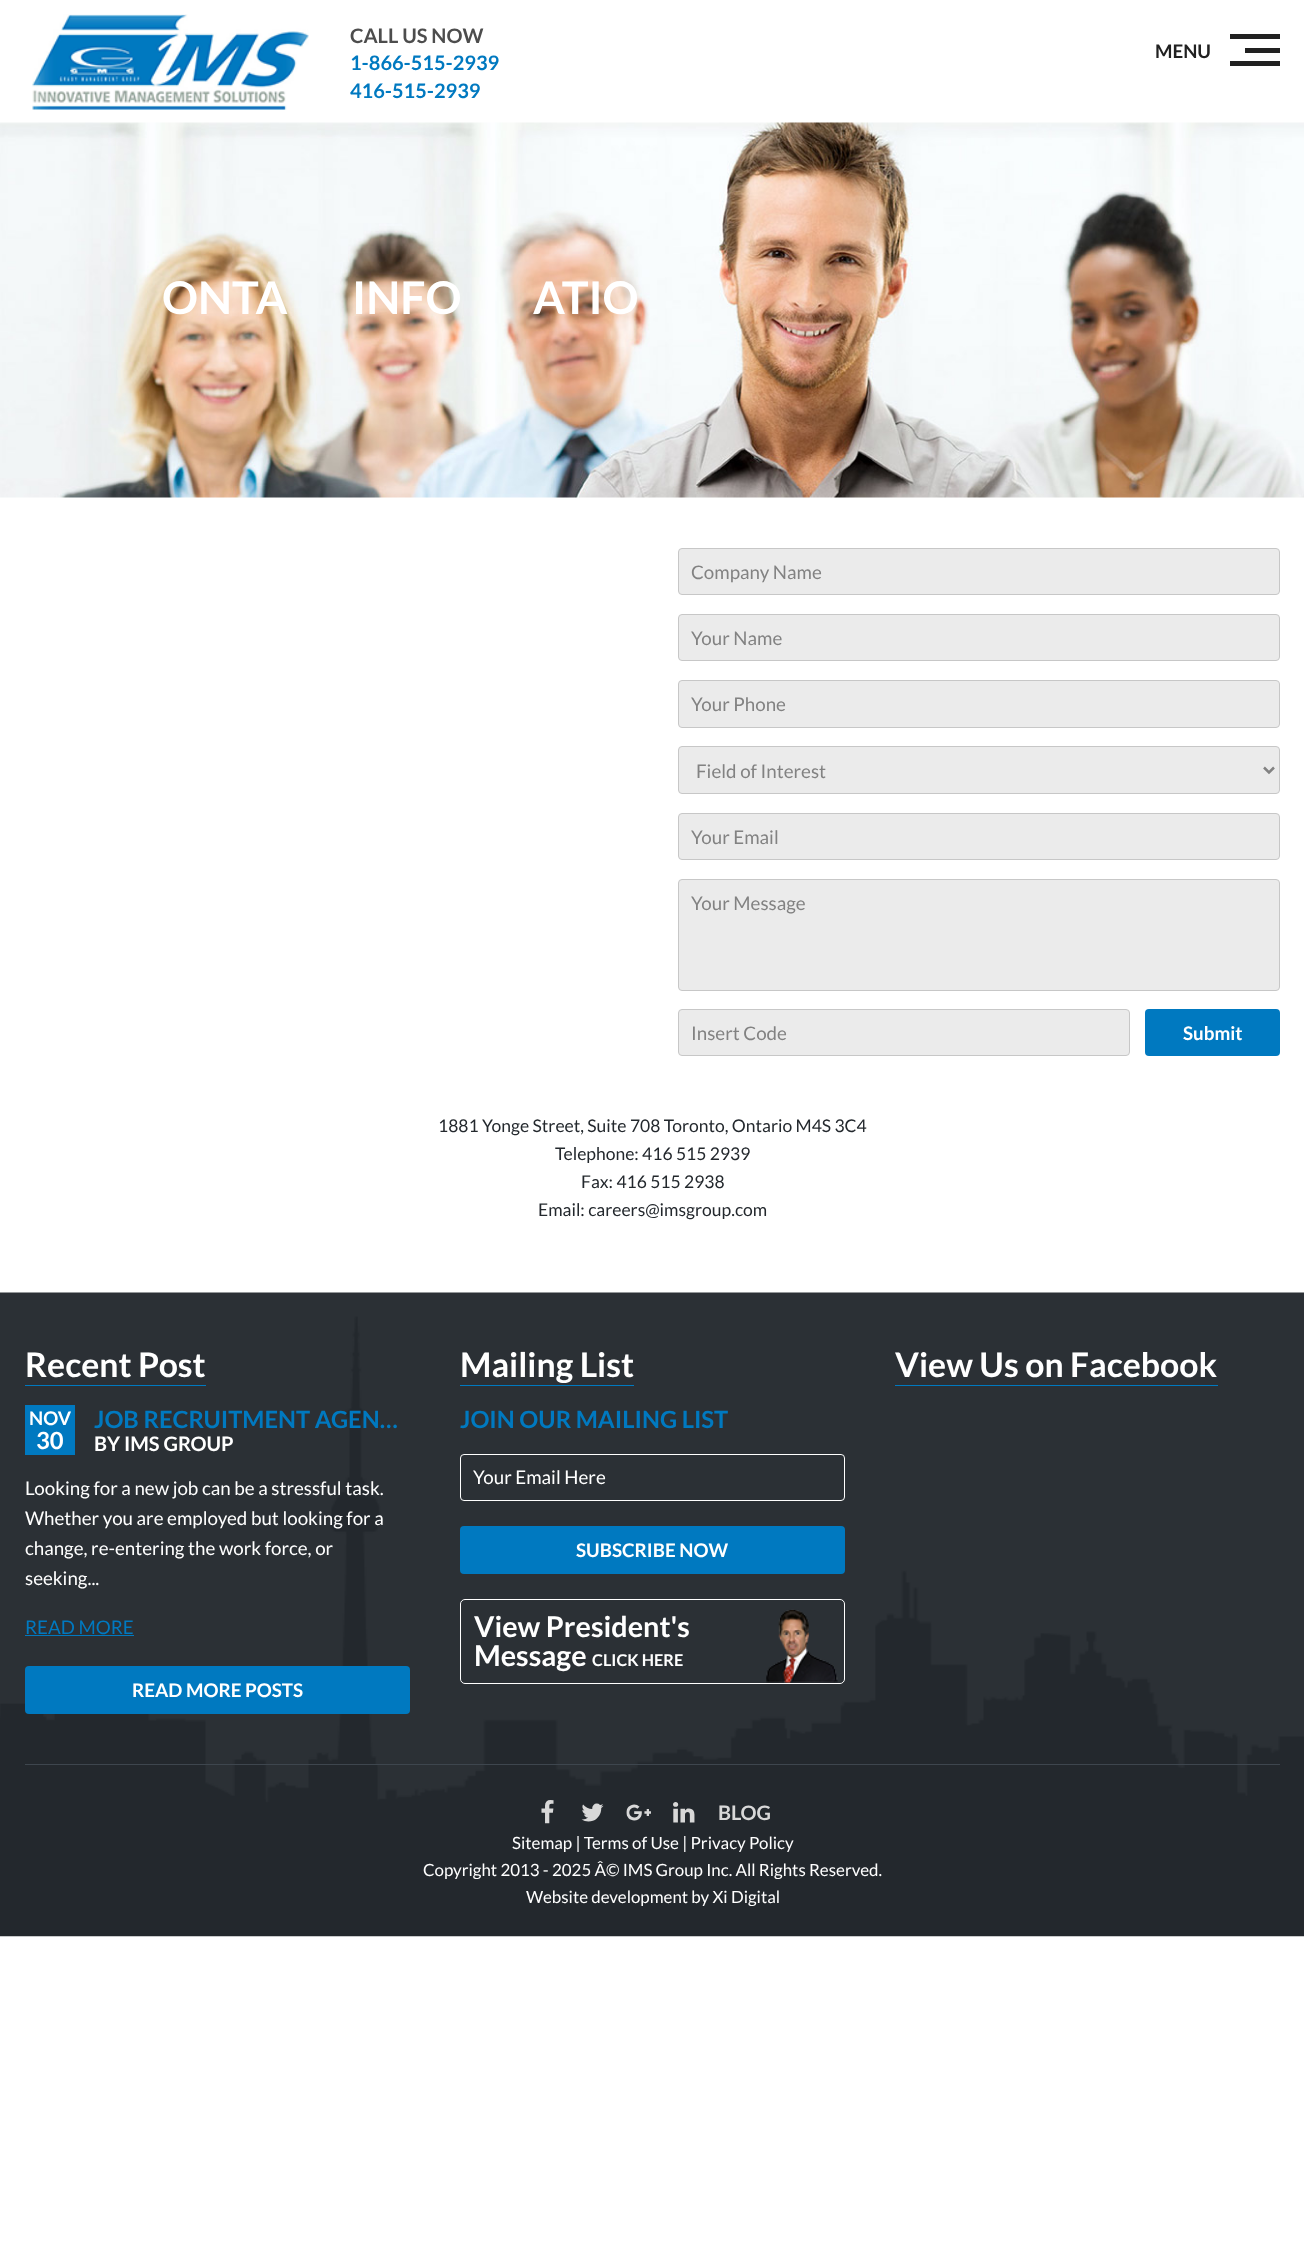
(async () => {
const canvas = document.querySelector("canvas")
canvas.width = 1304
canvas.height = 2260
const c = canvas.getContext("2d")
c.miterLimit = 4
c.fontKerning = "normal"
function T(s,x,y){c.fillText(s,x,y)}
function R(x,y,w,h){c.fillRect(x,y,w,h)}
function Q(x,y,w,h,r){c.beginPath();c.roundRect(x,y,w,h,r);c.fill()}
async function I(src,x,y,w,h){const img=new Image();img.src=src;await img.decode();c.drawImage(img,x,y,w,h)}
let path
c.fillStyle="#fff"
R(0,0,1304,2260)
await I("1.png",32,14,277,96)
c.font="bold 20px Lato"
c.fillStyle="#4d4d4d"
T("CALL US NOW",350,43)
c.fillStyle="#0079c0"
T("1-866-515-2939",350,70)
T("416-515-2939",350,98)
c.fillStyle="#212121"
R(1230,34,50,5)
c.font="bold 18.75px Lato"
T("MENU",1155,58)
R(1245,48,35,5)
R(1230,61,50,5)
await I("2.png",0,122,1304,376)
c.font="bold 45px Lato"
c.fillStyle="#fff"
T("ONTA",162,314)
T("INFO",352,314)
T("ATIO",533,314)
c.fillStyle="#ebebeb"
c.beginPath()
c.roundRect(678.5,548.5,601,46,3.5)
c.fill()
c.strokeStyle="#c7c7c7"
c.stroke()
c.font="18.75px Lato"
c.fillStyle="#828282"
T("Company Name",691,579)
c.fillStyle="#ebebeb"
c.beginPath()
c.roundRect(678.5,614.5,601,46,3.5)
c.fill()
c.stroke()
c.fillStyle="#828282"
T("Your Name",691,645)
c.fillStyle="#ebebeb"
c.beginPath()
c.roundRect(678.5,680.5,601,47,3.5)
c.fill()
c.stroke()
c.fillStyle="#828282"
T("Your Phone",691,711)
c.fillStyle="#ebebeb"
c.beginPath()
c.roundRect(678.5,746.5,601,47,3.5)
c.fill()
c.stroke()
path = new Path2D("M1264 767.5l5 5l5-5")
c.strokeStyle="#828282"
c.lineWidth=2.5
c.stroke(path)
c.fillStyle="#828282"
T("Field of Interest",696,778)
c.fillStyle="#ebebeb"
c.beginPath()
c.roundRect(678.5,813.5,601,46,3.5)
c.fill()
c.strokeStyle="#c7c7c7"
c.lineWidth=1
c.stroke()
c.fillStyle="#828282"
T("Your Email",691,844)
c.fillStyle="#ebebeb"
c.beginPath()
c.roundRect(678.5,879.5,601,111,3.5)
c.fill()
c.stroke()
c.fillStyle="#828282"
T("Your Message",691,910)
c.fillStyle="#ebebeb"
c.beginPath()
c.roundRect(678.5,1009.5,451,46,3.5)
c.fill()
c.stroke()
c.fillStyle="#828282"
T("Insert Code",691,1040)
c.fillStyle="#0079c0"
Q(1145,1009,135,47,4)
c.font="bold 18.75px Lato"
c.fillStyle="#fff"
T("Submit",1183,1040)
c.font="17.5px Lato"
c.fillStyle="#23282d"
T("1881 Yonge Street, Suite 708 Toronto, Ontario M4S 3C4",438,1132)
T("Telephone: 416 515 2939",555,1160)
T("Fax: 416 515 2938",581,1188)
T("Email: careers@imsgroup.com",538,1216)
await I("3.png",0,1292,1304,645)
c.fillStyle="#0079c0"
R(25,1385,181,1)
c.font="bold 33.75px Lato"
c.fillStyle="#fff"
T("Recent Post",25,1377)
c.fillStyle="#0079c0"
R(25,1405,50,50)
c.font="bold 18.75px Lato"
c.fillStyle="#fff"
T("NOV",29,1425)
c.font="bold 23.75px Lato"
T("30",36,1449)
c.fillStyle="#0079c0"
T("JOB RECRUITMENT AGEN…",94,1428)
c.font="bold 20px Lato"
c.fillStyle="#fff"
T("BY IMS GROUP",94,1451)
c.font="18.75px Lato"
T("Looking for a new job can be a stressful task.",25,1495)
T("Whether you are employed but looking for a",25,1525)
T("change, re-entering the work force, or",25,1555)
T("seeking...",25,1585)
c.fillStyle="#0079c0"
T("READ MORE",25,1634)
R(25,1635,109,1)
Q(25,1666,385,48,4)
c.font="bold 18.75px Lato"
c.fillStyle="#fff"
T("READ MORE POSTS",132,1697)
c.fillStyle="#0079c0"
R(460,1385,174,1)
c.font="bold 33.75px Lato"
c.fillStyle="#fff"
T("Mailing List",460,1377)
c.font="bold 23.75px Lato"
c.fillStyle="#0079c0"
T("JOIN OUR MAILING LIST",460,1428)
c.beginPath()
c.roundRect(460.5,1454.5,384,46,3.5)
c.strokeStyle="#fff"
c.stroke()
c.font="18.75px Lato"
c.fillStyle="#fff"
T("Your Email Here",473,1484)
c.fillStyle="#0079c0"
Q(460,1526,385,48,4)
c.font="bold 18.75px Lato"
c.fillStyle="#fff"
T("SUBSCRIBE NOW",576,1557)
c.beginPath()
c.roundRect(460.5,1599.5,384,84,4.5)
c.stroke()
c.font="bold 28.75px Lato"
T("View President's",474,1637)
await I("4.png",766,1609,72,74)
T("Message",474,1666)
c.font="bold 16.25px Lato"
T("CLICK HERE",592,1666)
c.fillStyle="#0079c0"
R(895,1385,323,1)
c.font="bold 33.75px Lato"
c.fillStyle="#fff"
T("View Us on Facebook",895,1377)
c.fillStyle="#3e464e"
R(25,1764,1255,1)
await I("5.png",541,1800,13,24)
await I("6.png",581,1803,23,19)
await I("7.png",626,1804,25,17)
await I("8.png",673,1802,22,21)
c.font="bold 20px Lato"
c.fillStyle="#d8d8d8"
T("BLOG",718,1820)
c.font="16.9px Lato"
c.fillStyle="#fff"
T("Sitemap | Terms of Use | Privacy Policy",512,1849)
T("Copyright 2013 - 2025 Â© IMS Group Inc. All Rights Reserved.",423,1876)
T("Website development by Xi Digital",526,1903)
})()
